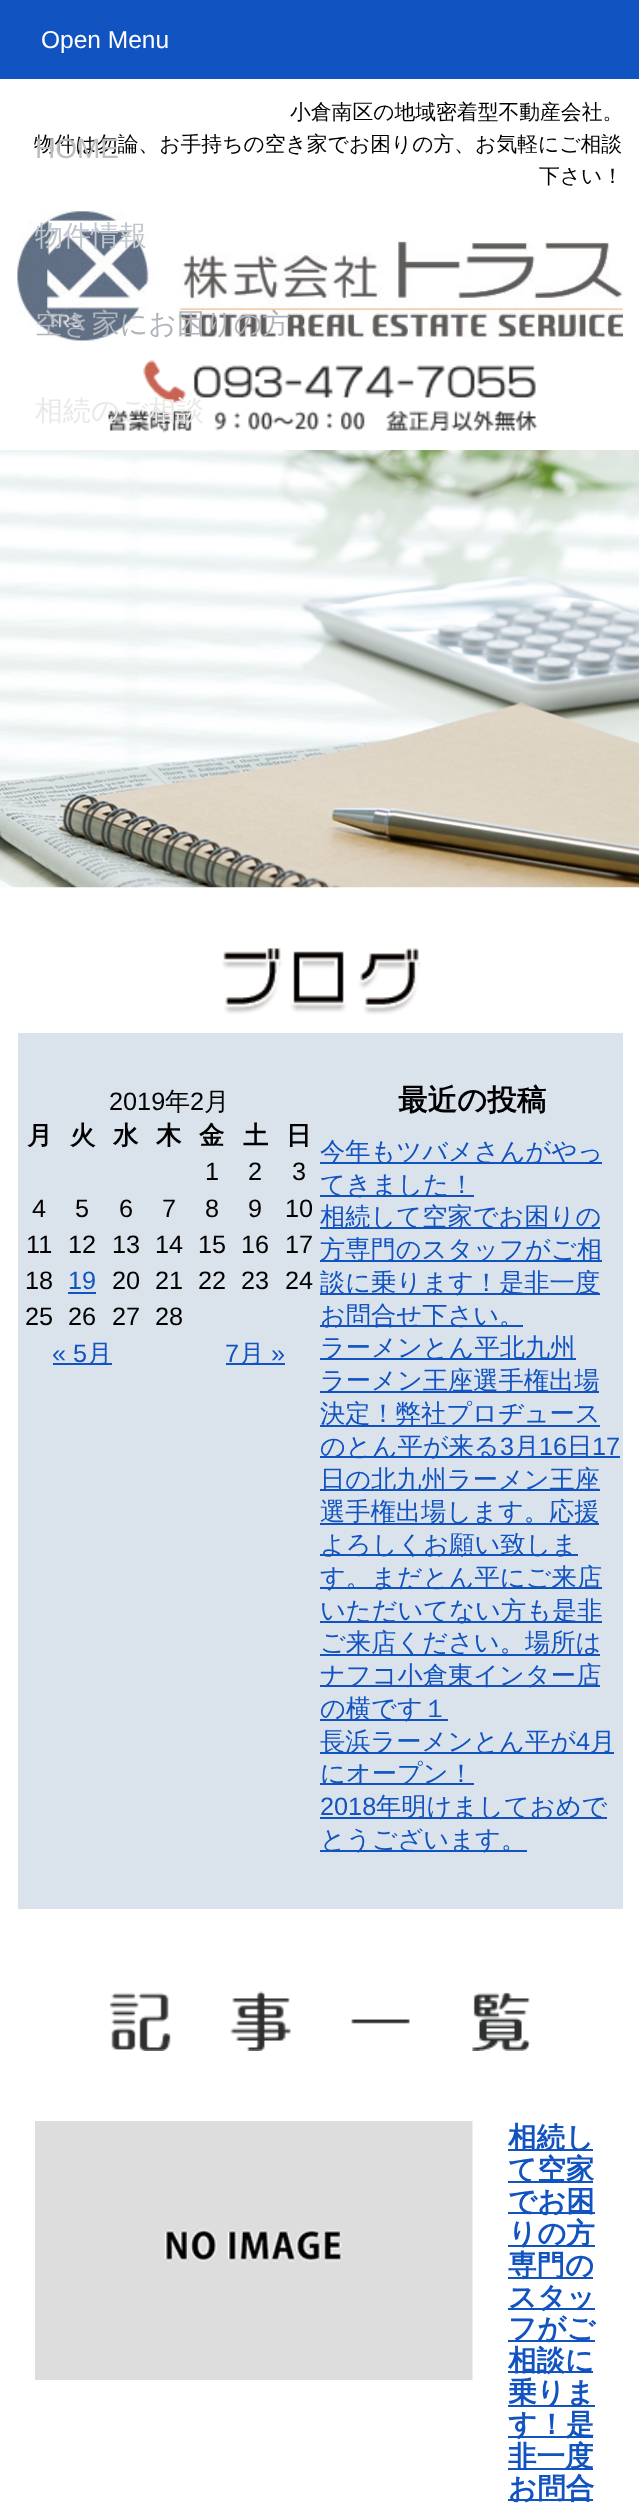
(async () => {
const canvas = document.querySelector("canvas")
canvas.width = 639
canvas.height = 2519
const c = canvas.getContext("2d")
c.miterLimit = 4
c.fontKerning = "normal"
function T(s,x,y){c.fillText(s,x,y)}
function R(x,y,w,h){c.fillRect(x,y,w,h)}
async function I(src,x,y,w,h){const img=new Image();img.src=src;await img.decode();c.drawImage(img,x,y,w,h)}
c.fillStyle="#fff"
R(0,0,639,2519)
c.fillStyle="#1153c1"
R(0,0,639,79)
c.font="24.5px Liberation Sans"
c.fillStyle="#fff"
T("Open Menu",41,48)
c.font="500 20.8px WenQuanYi Zen Hei"
c.fillStyle="#000"
T("物件は勿論、お手持ちの空き家でお困りの方、お気軽にご相談",34,151)
c.font="28px Liberation Sans"
c.fillStyle="#bfbfbf"
T("HOME",35,158)
await I("1.png",17,210,606,133)
c.font="500 28px WenQuanYi Zen Hei"
c.fillStyle="#c0c6ce"
T("物件情報",35,245)
c.fillStyle="#b0b5bc"
T("空き家にお困りの方",35,333)
await I("2.png",108,360,430,73)
c.fillStyle="#eae9e8"
T("相続のご相談",35,420)
c.font="500 20.8px WenQuanYi Zen Hei"
c.fillStyle="#000"
T("小倉南区の地域密着型不動産会社。",290,119)
T("下さい！",539,183)
await I("3.png",0,450,639,438)
await I("4.png",222,948,199,67)
c.fillStyle="#dae2ec"
R(18,1033,605,876)
c.font="25.25px Liberation Sans"
c.fillStyle="#000"
T("2019",109,1110)
c.font="500 25.25px WenQuanYi Zen Hei"
T("年",165,1110)
c.font="25.25px Liberation Sans"
T("2",190,1110)
c.font="500 25.25px WenQuanYi Zen Hei"
T("月",204,1110)
c.font="bold 25.25px WenQuanYi Zen Hei"
T("月",27,1144)
T("火",70,1144)
T("水",113,1144)
T("木",156,1144)
T("金",199,1144)
T("土",243,1144)
T("日",286,1144)
c.font="25.25px Liberation Sans"
T("1",205,1180)
T("2",248,1180)
T("3",292,1180)
T("4",32,1217)
T("5",75,1217)
T("6",119,1217)
T("7",162,1217)
T("8",205,1217)
T("9",248,1217)
T("10",285,1217)
T("11",26,1253)
T("12",68,1253)
T("13",112,1253)
T("14",155,1253)
T("15",198,1253)
T("16",241,1253)
T("17",285,1253)
T("18",25,1289)
c.fillStyle="#1153c1"
T("19",68,1289)
R(68,1292,28,2)
c.fillStyle="#000"
T("20",112,1289)
T("21",155,1289)
T("22",198,1289)
T("23",241,1289)
T("24",285,1289)
T("25",25,1325)
T("26",68,1325)
T("27",112,1325)
T("28",155,1325)
c.fillStyle="#1153c1"
T("« 5",52,1362)
R(53,1363,59,2)
c.font="500 25.25px WenQuanYi Zen Hei"
T("月",87,1362)
c.font="25.25px Liberation Sans"
T("7",225,1362)
R(226,1363,59,2)
c.font="500 25.25px WenQuanYi Zen Hei"
T("月",239,1362)
c.font="25.25px Liberation Sans"
T("»",271,1362)
c.font="bold 29.5px WenQuanYi Zen Hei"
c.fillStyle="#000"
T("最近の投稿",398,1110)
c.fillStyle="#1153c1"
R(320,1162,282,2)
c.font="500 25.25px WenQuanYi Zen Hei"
T("今年もツバメさんがやっ",320,1160)
R(320,1195,154,2)
T("てきました！",320,1193)
R(320,1227,280,2)
T("相続して空家でお困りの",320,1225)
R(320,1260,282,2)
T("方専門のスタッフがご相",320,1258)
R(320,1293,280,2)
T("談に乗ります！是非一度",320,1291)
R(320,1325,203,2)
T("お問合せ下さい。",320,1324)
R(320,1358,256,2)
T("ラーメンとん平北九州",320,1356)
R(320,1391,279,2)
T("ラーメン王座選手権出場",320,1389)
R(320,1425,280,2)
T("決定！弊社プロヂュース",320,1422)
R(320,1456,300,2)
T("のとん平が来る",320,1455)
c.font="25.25px Liberation Sans"
T("3",500,1455)
c.font="500 25.25px WenQuanYi Zen Hei"
T("月",514,1455)
c.font="25.25px Liberation Sans"
T("16",539,1455)
c.font="500 25.25px WenQuanYi Zen Hei"
T("日",567,1455)
c.font="25.25px Liberation Sans"
T("17",592,1455)
R(320,1489,280,2)
c.font="500 25.25px WenQuanYi Zen Hei"
T("日の北九州ラーメン王座",320,1488)
R(320,1523,279,2)
T("選手権出場します。応援",320,1520)
R(320,1554,258,2)
T("よろしくお願い致しま",320,1553)
R(320,1587,282,2)
T("す。まだとん平にご来店",320,1586)
R(320,1621,282,2)
T("いただいてない方も是非",320,1619)
R(320,1654,280,2)
T("ご来店ください。場所は",320,1651)
R(320,1685,280,2)
T("ナフコ小倉東インター店",320,1684)
R(320,1719,128,2)
T("の横です１",320,1717)
R(320,1752,294,2)
T("長浜ラーメンとん平が",320,1750)
c.font="25.25px Liberation Sans"
T("4",576,1750)
c.font="500 25.25px WenQuanYi Zen Hei"
T("月",590,1750)
R(320,1783,154,2)
T("にオープン！",320,1782)
c.font="25.25px Liberation Sans"
T("2018",320,1815)
R(320,1817,287,2)
c.font="500 25.25px WenQuanYi Zen Hei"
T("年明けましておめで",376,1815)
R(320,1850,207,2)
T("とうございます。",320,1848)
await I("5.png",110,1991,421,60)
await I("6.png",35,2121,438,259)
R(508,2149,85,2)
c.font="bold 28.5px WenQuanYi Zen Hei"
T("相続し",508,2147)
R(508,2181,85,2)
T("て空家",508,2179)
R(508,2212,87,2)
T("でお困",508,2211)
R(508,2245,87,2)
T("りの方",508,2243)
R(508,2277,85,2)
T("専門の",508,2275)
R(508,2308,87,2)
T("スタッ",508,2307)
R(508,2340,87,2)
T("フがご",508,2338)
R(508,2371,85,2)
T("相談に",508,2370)
R(508,2405,87,2)
T("乗りま",508,2402)
R(508,2436,85,2)
T("す！是",508,2434)
R(508,2468,85,2)
T("非一度",508,2466)
R(508,2499,85,2)
T("お問合",508,2498)
})()
